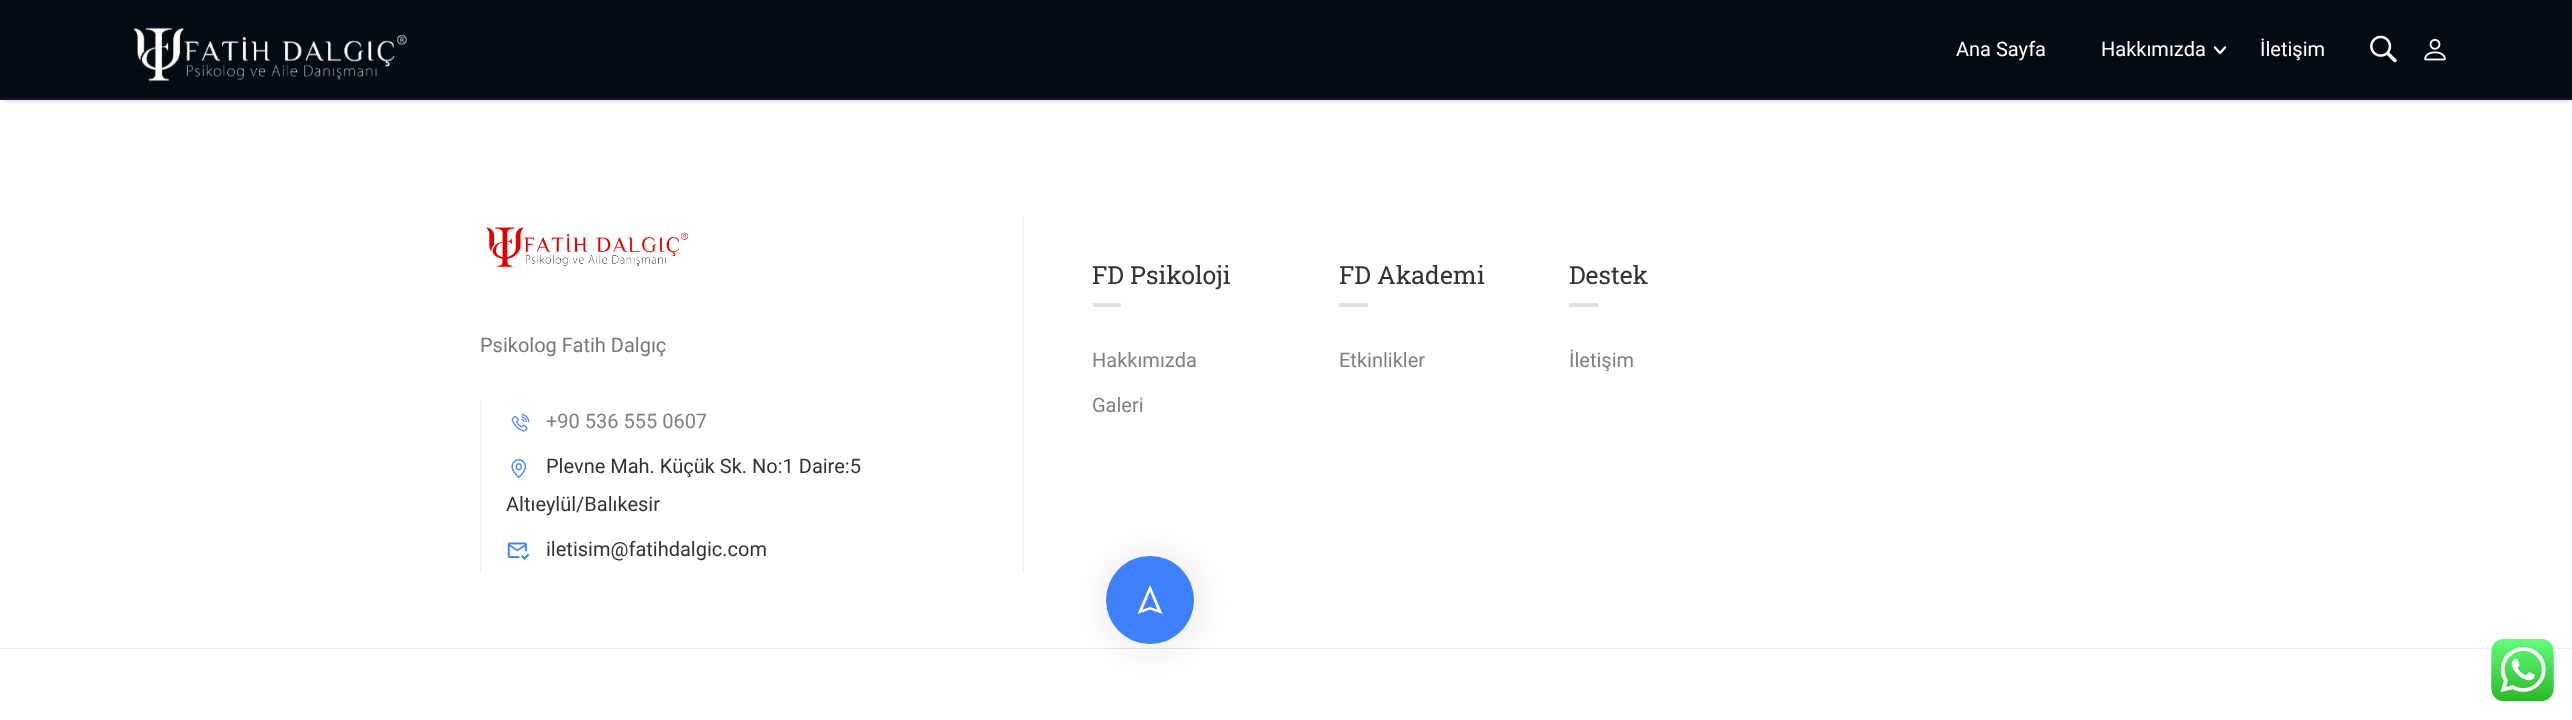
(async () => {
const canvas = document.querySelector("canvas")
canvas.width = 2572
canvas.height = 720
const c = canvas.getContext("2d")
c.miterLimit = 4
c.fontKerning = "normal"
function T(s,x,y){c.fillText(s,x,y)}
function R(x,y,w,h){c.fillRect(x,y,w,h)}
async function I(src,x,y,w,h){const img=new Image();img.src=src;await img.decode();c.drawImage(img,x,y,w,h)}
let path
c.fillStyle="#fff"
R(0,0,2572,720)
c.fillStyle="#191919"
R(0,98,2572,2)
c.fillStyle="#050c13"
R(0,0,2572,98)
await I("5.png",0,0,2572,97)
c.save()
c.beginPath()
c.rect(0,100,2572,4)
c.clip()
c.fillStyle="#2a2a2a66"
c.filter="blur(3px)"
c.beginPath()
c.rect(3,4,2567,95)
c.fill()
c.filter="none"
c.restore()
await I("1.png",134,27,273,55)
c.font="20px Roboto"
c.fillStyle="#fff"
T("Ana Sayfa",1956,56)
T("Hakkımızda",2101,56)
await I("2.png",2213,46,14,9)
T("İletişim",2260,56)
await I("3.png",2370,35,27,28)
await I("4.png",2424,39,22,22)
c.font="25px Roboto Slab"
c.fillStyle="#333"
T("FD Psikoloji",1092,284)
c.fillStyle="#e0e0e0"
R(1093,303,28,4)
c.font="20px Roboto"
c.fillStyle="#808080"
T("Hakkımızda",1092,367)
T("Galeri",1092,412)
c.font="25px Roboto Slab"
c.fillStyle="#333"
T("FD Akademi",1339,284)
c.fillStyle="#e0e0e0"
R(1339,303,29,4)
c.font="20px Roboto"
c.fillStyle="#808080"
T("Etkinlikler",1339,367)
c.font="25px Roboto Slab"
c.fillStyle="#333"
T("Destek",1569,284)
c.fillStyle="#e0e0e0"
R(1569,303,29,4)
c.font="20px Roboto"
c.fillStyle="#808080"
T("İletişim",1569,367)
c.fillStyle="#ececec"
R(1023,216,1,357)
await I("6.png",486,227,202,40)
c.fillStyle="#777"
T("Psikolog Fatih Dalgıç",480,352)
c.fillStyle="#ececec"
R(480,400,1,173)
await I("7.png",511,414,19,18)
c.fillStyle="#808080"
T("+90 536 555 0607",546,428)
await I("8.png",511,459,15,20)
c.fillStyle="#333"
T("Plevne Mah. Küçük Sk. No:1 Daire:5",546,473)
T("Altıeylül/Balıkesir",506,511)
await I("9.png",507,542,23,18)
T("iletisim@fatihdalgic.com",546,556)
c.fillStyle="#ececec"
R(0,648,2572,1)
c.fillStyle="#0000000d"
c.filter="blur(12.5px)"
c.beginPath()
c.roundRect(1096,546,113,113,56.5)
c.fill()
c.filter="none"
c.fillStyle="#3f81fc"
c.beginPath()
c.arc(1150,600,44,0,7)
c.fill()
c.fillStyle="#fff"
path = new Path2D("M1150 585l-12.5 29l12.5-4.5l12.5 4.5zm0 6.5l7.5 18l-7.5-2.5l-7.5 2.5z")
c.fill(path)
await I("10.png",2491,639,63,62)
})()
